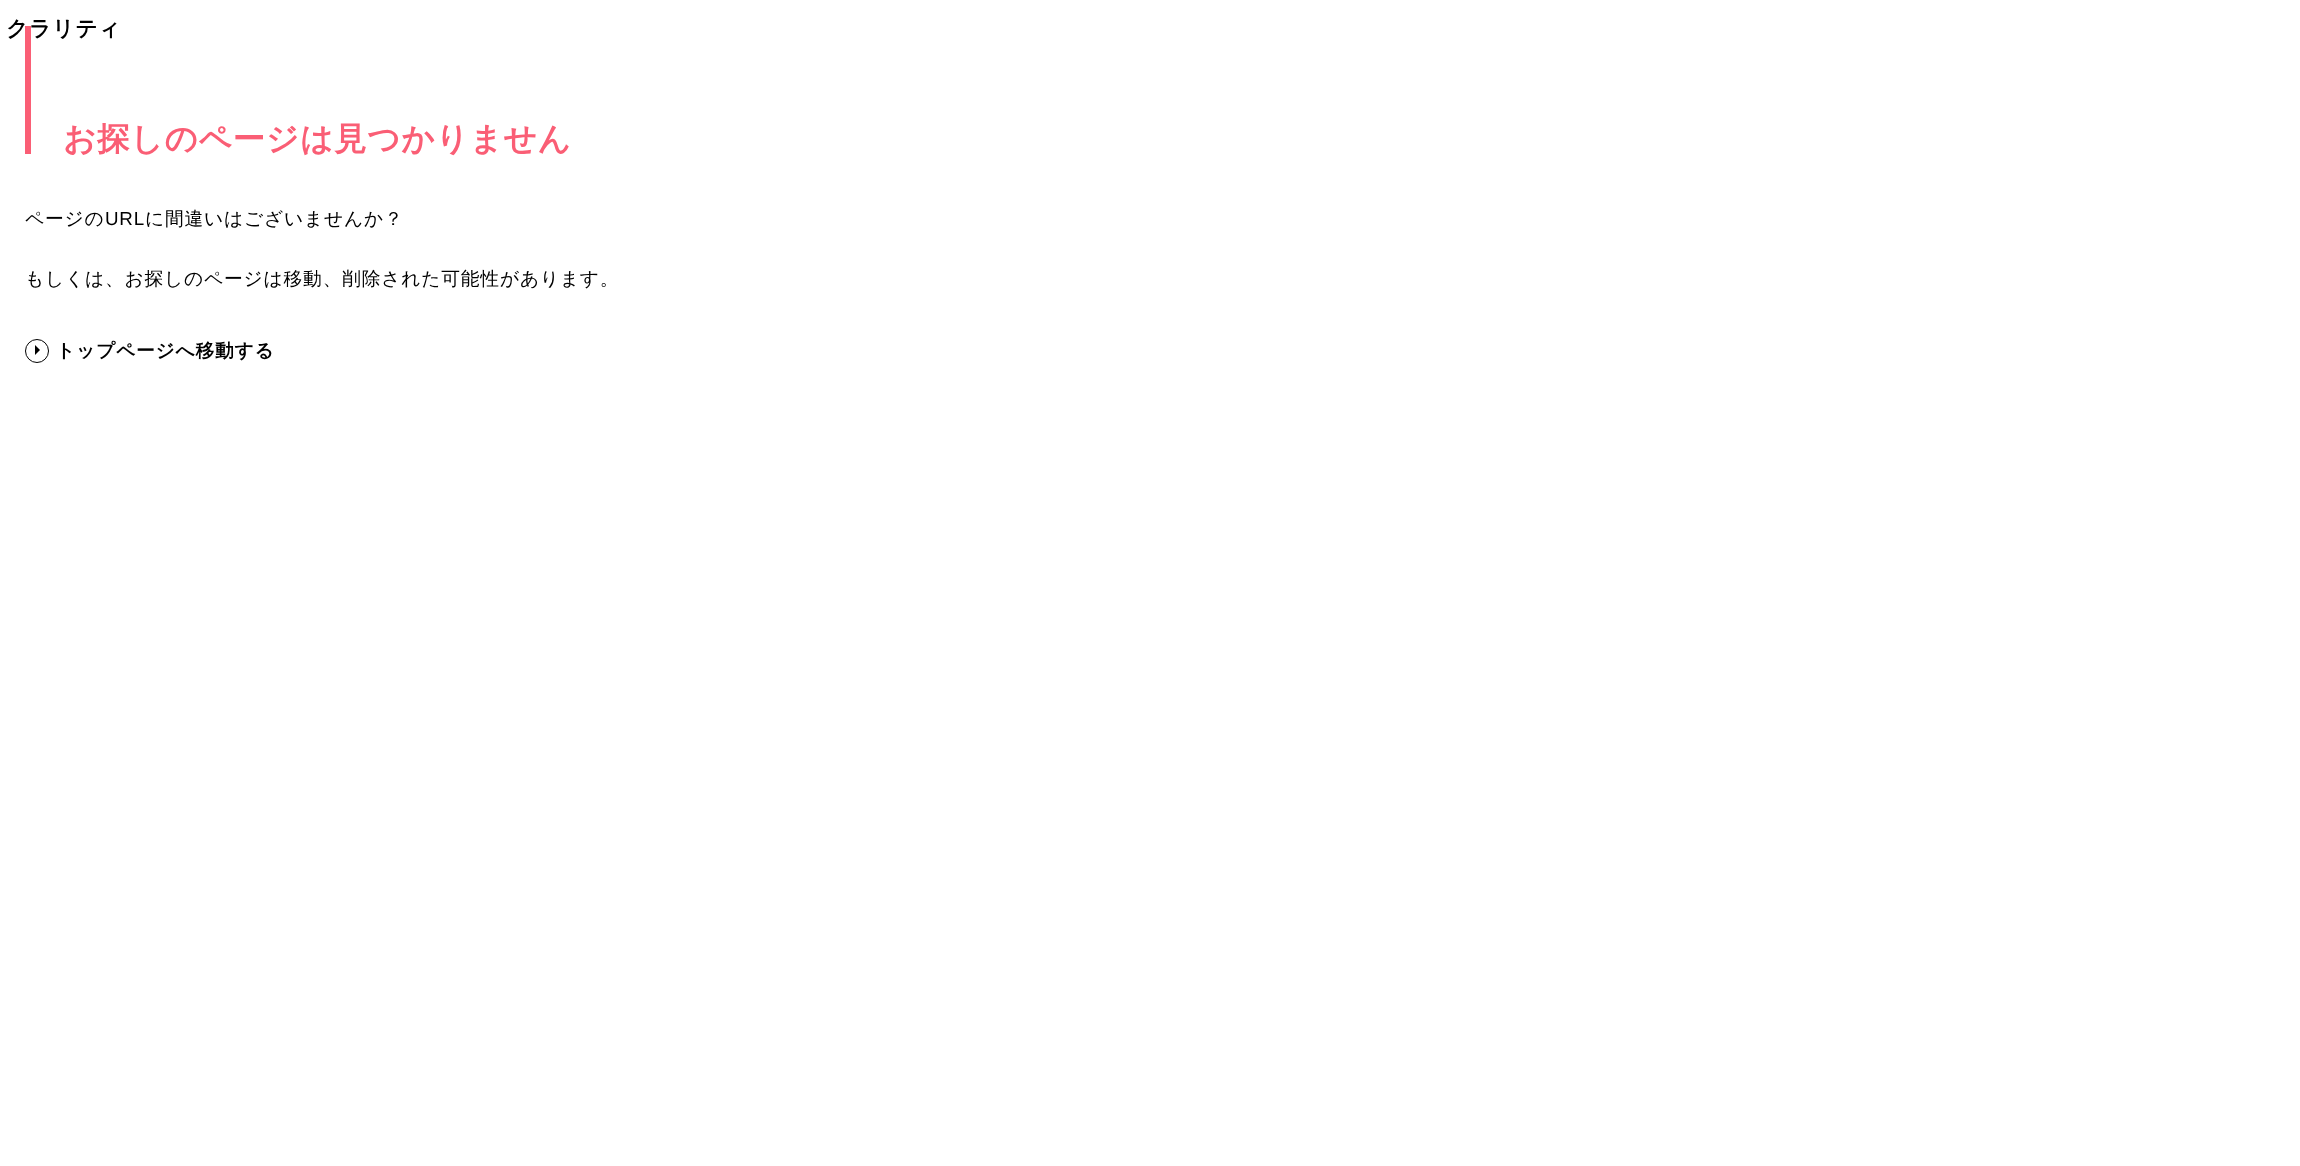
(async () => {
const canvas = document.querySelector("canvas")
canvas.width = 2300
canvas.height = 1166
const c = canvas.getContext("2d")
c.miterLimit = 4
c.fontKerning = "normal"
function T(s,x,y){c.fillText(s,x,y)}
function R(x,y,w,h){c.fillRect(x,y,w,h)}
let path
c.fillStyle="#fff"
R(0,0,2300,1166)
c.letterSpacing="0.8px"
c.font="bold 21.75px WenQuanYi Zen Hei"
c.fillStyle="#000"
T("クラリティ",6,36)
c.fillStyle="#fa5e75"
R(25,26,6,128)
c.font="bold 32.5px WenQuanYi Zen Hei"
T("お探しのページは見つかりません",63,150)
c.font="500 18.75px WenQuanYi Zen Hei"
c.fillStyle="#000"
T("ページの",25,225)
c.font="18.75px Liberation Sans"
T("URL",105,225)
c.font="500 18.75px WenQuanYi Zen Hei"
T("に間違いはございませんか？",145,225)
T("もしくは、お探しのページは移動、削除された可能性があります。",25,285)
c.beginPath()
c.arc(37,351,11.5,0,7)
c.strokeStyle="#000"
c.stroke()
c.font="bold 18.75px WenQuanYi Zen Hei"
T("トップページへ移動する",56,357)
path = new Path2D("M35 355v-10l5 5z")
c.fill(path)
})()
